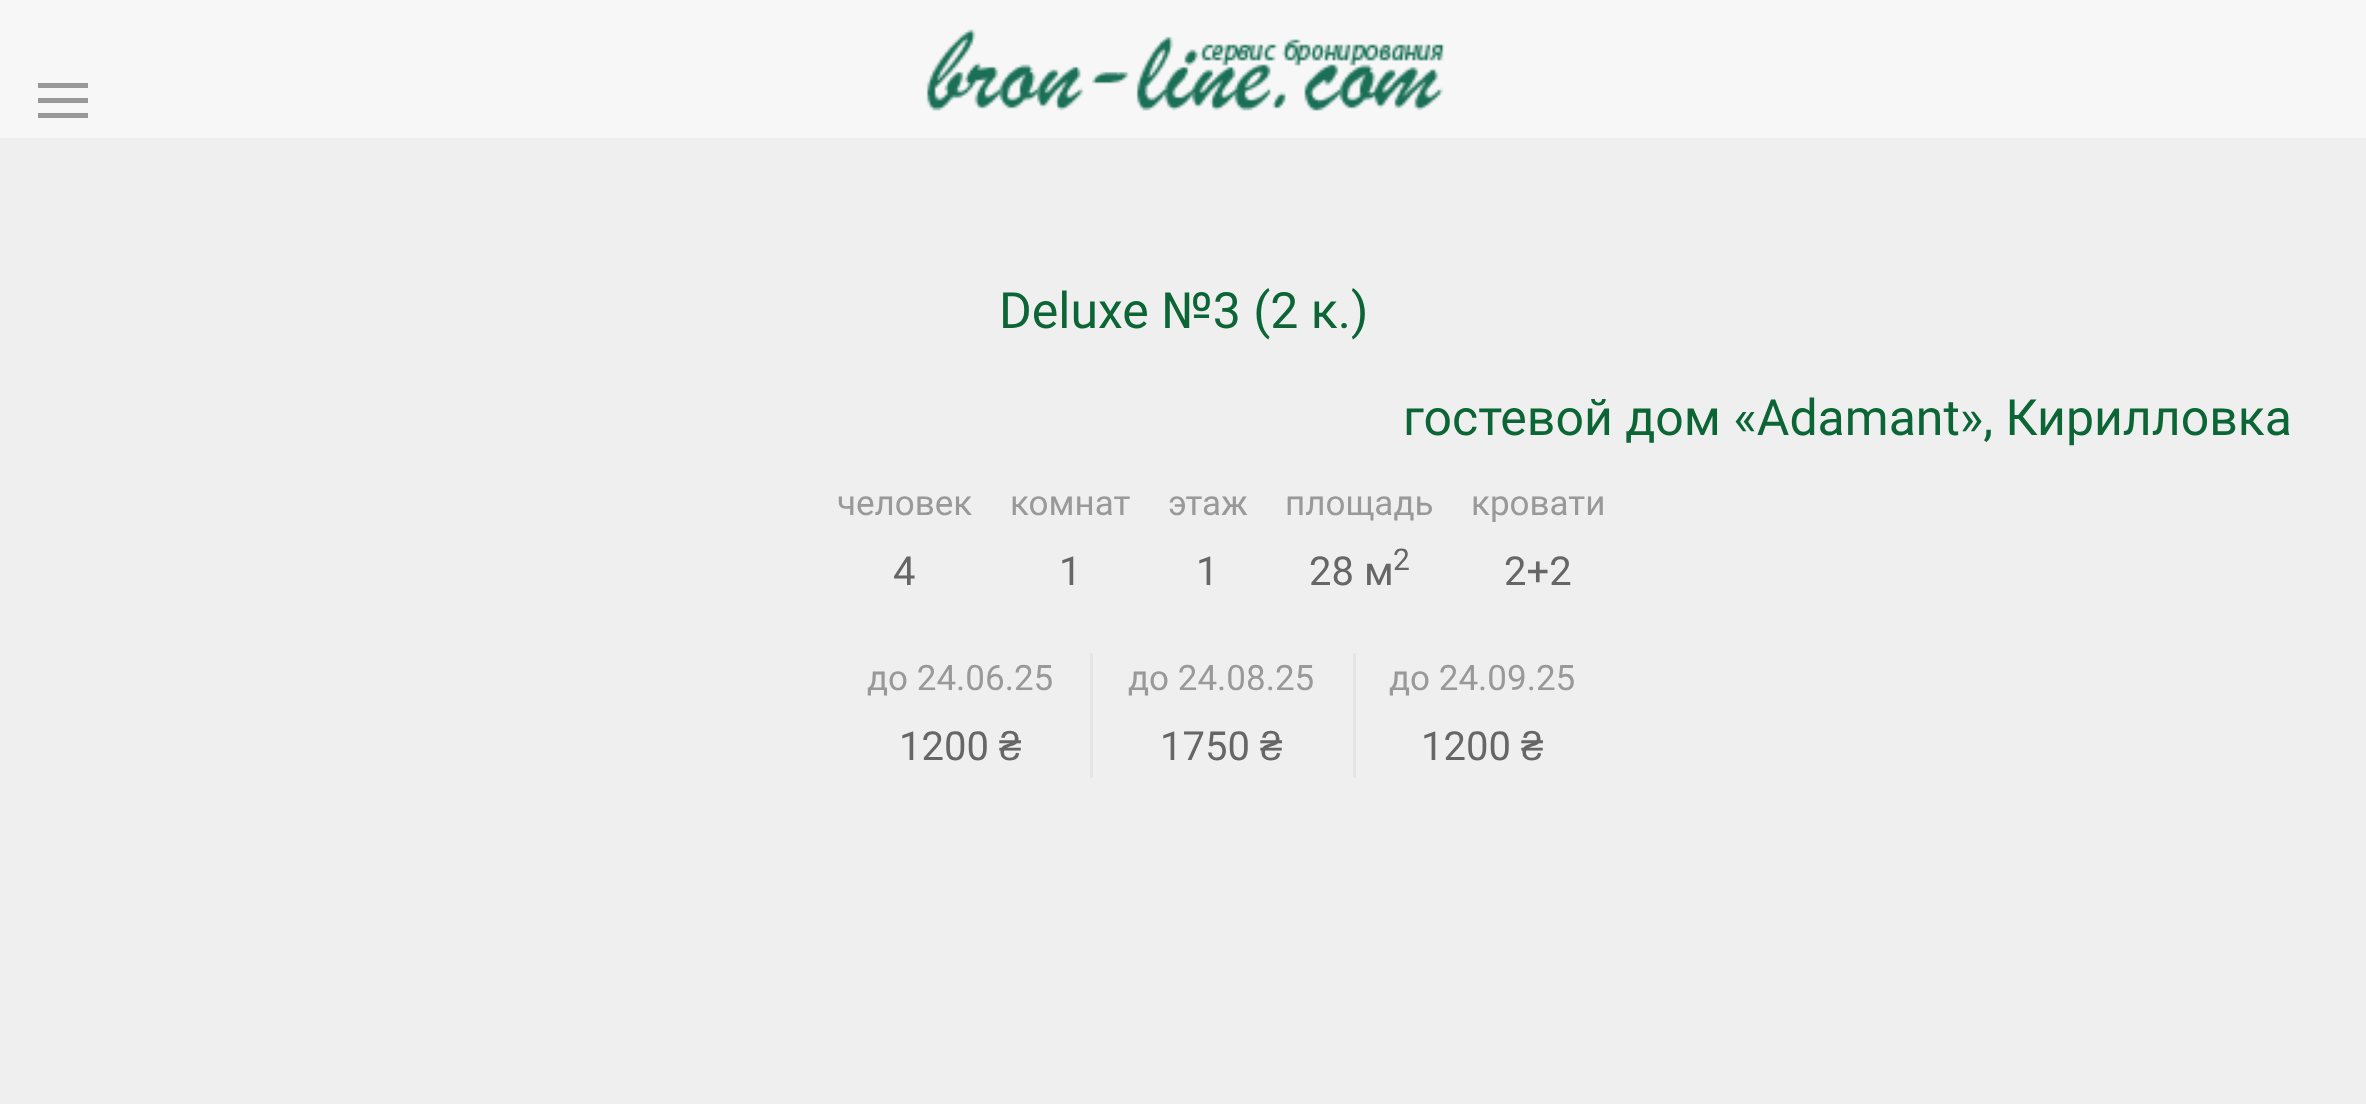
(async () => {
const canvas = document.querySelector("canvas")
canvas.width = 2366
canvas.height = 1104
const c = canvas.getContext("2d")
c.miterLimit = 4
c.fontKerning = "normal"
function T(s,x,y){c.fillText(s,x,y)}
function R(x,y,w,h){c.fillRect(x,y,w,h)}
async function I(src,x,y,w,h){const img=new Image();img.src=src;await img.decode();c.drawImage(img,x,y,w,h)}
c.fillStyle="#efefef"
R(0,0,2366,1104)
c.fillStyle="#f7f7f7"
R(0,0,2366,138)
c.fillStyle="#999"
R(38,83,50,5)
R(38,98,50,5)
R(38,113,50,5)
await I("1.png",926,29,519,82)
c.font="50px Roboto"
c.fillStyle="#0b6535"
T("Deluxe №3 (2 к.)",999,328)
T("гостевой дом «Adamant», Кирилловка",1403,435)
c.font="35px Roboto"
c.fillStyle="#999"
T("человек",837,515)
c.font="40px Roboto"
c.fillStyle="#666"
T("4",893,585)
c.font="35px Roboto"
c.fillStyle="#999"
T("комнат",1010,515)
c.font="40px Roboto"
c.fillStyle="#666"
T("1",1059,585)
c.font="35px Roboto"
c.fillStyle="#999"
T("этаж",1168,515)
c.font="40px Roboto"
c.fillStyle="#666"
T("1",1196,585)
c.font="35px Roboto"
c.fillStyle="#999"
T("площадь",1285,515)
c.font="40px Roboto"
c.fillStyle="#666"
T("28 м",1309,585)
c.font="30px Roboto"
T("2",1393,570)
c.font="35px Roboto"
c.fillStyle="#999"
T("кровати",1471,515)
c.font="40px Roboto"
c.fillStyle="#666"
T("2+2",1504,585)
c.font="35px Roboto"
c.fillStyle="#999"
T("до 24.06.25",867,690)
c.font="40px Roboto"
c.fillStyle="#666"
T("1200",899,760)
c.font="40px Liberation Sans"
T("₴",999,760)
c.fillStyle="#e5e5e5"
R(1090,653,3,125)
c.font="35px Roboto"
c.fillStyle="#999"
T("до 24.08.25",1128,690)
c.font="40px Roboto"
c.fillStyle="#666"
T("1750",1160,760)
c.font="40px Liberation Sans"
T("₴",1260,760)
c.fillStyle="#e5e5e5"
R(1353,653,3,125)
c.font="35px Roboto"
c.fillStyle="#999"
T("до 24.09.25",1389,690)
c.font="40px Roboto"
c.fillStyle="#666"
T("1200",1421,760)
c.font="40px Liberation Sans"
T("₴",1521,760)
})()
